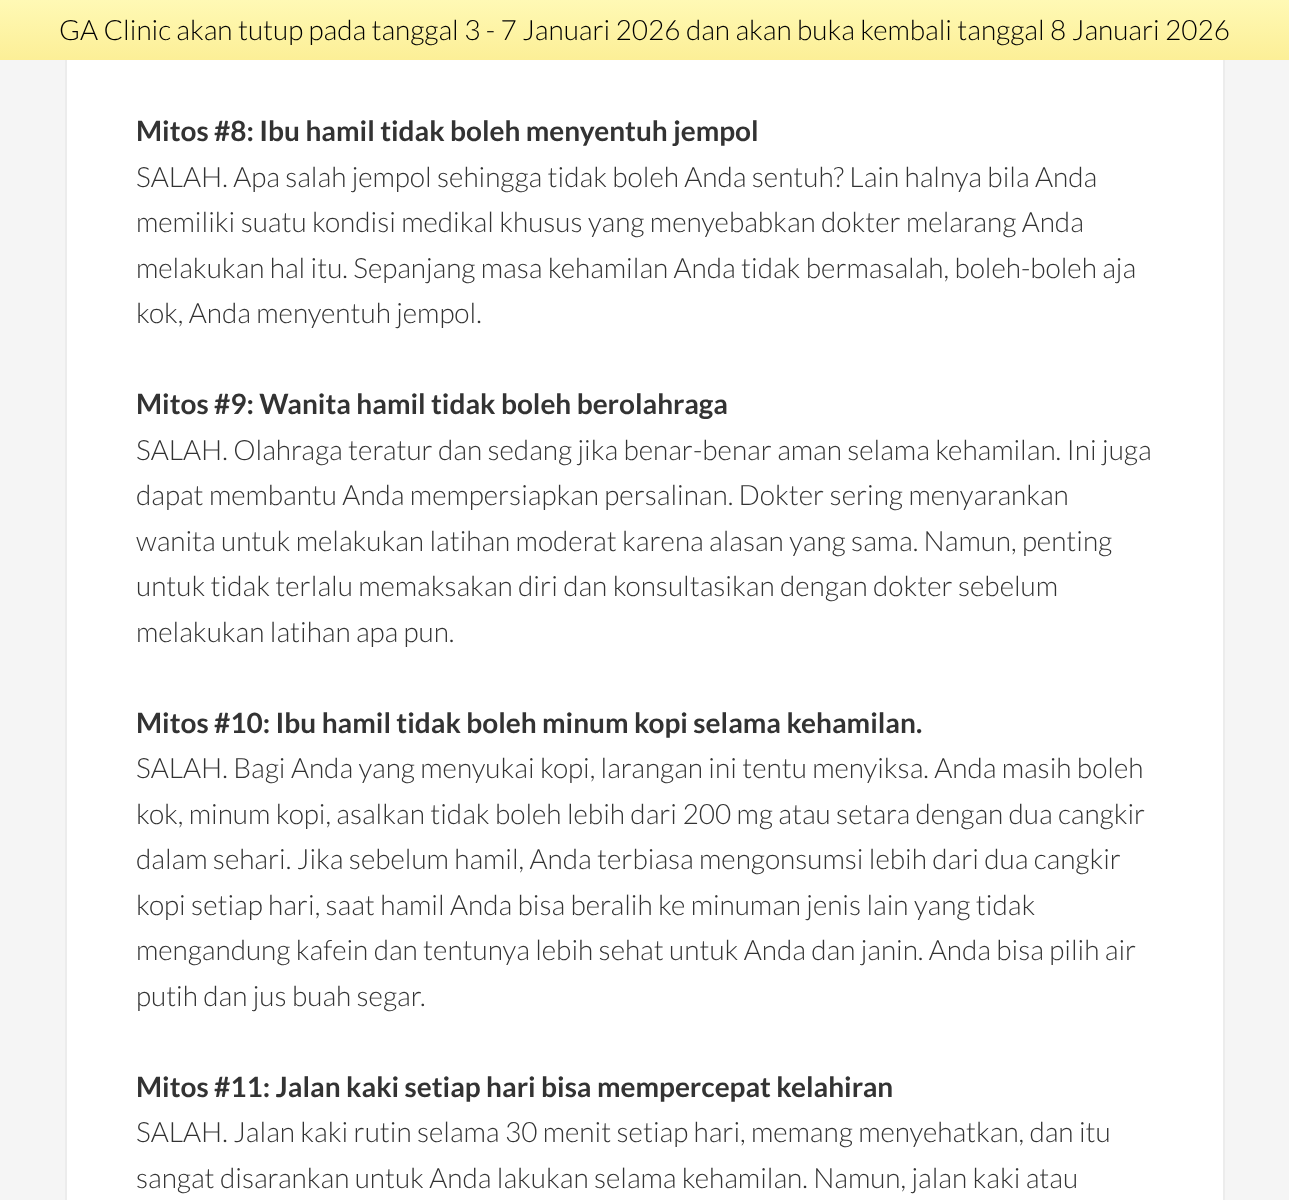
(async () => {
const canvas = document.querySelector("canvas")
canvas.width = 1289
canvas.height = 1200
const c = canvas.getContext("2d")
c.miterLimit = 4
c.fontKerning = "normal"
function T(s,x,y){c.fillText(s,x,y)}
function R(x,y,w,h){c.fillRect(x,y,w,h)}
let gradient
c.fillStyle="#f5f5f5"
R(0,0,1289,1200)
c.fillStyle="#fff"
R(67,60,1156,1140)
c.strokeStyle="#ececec"
c.lineWidth=2
c.strokeRect(66,-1,1158,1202)
gradient = c.createLinearGradient(645,0,645,60)
gradient.addColorStop(0,"#fff9b5")
gradient.addColorStop(1,"#fcef97")
c.fillStyle = gradient
R(0,0,1289,60)
c.font="300 28px Lato"
c.fillStyle="#000"
T("GA Clinic akan tutup pada tanggal 3 - 7 Januari 2026 dan akan buka kembali tanggal 8 Januari 2026",59,40)
c.font="bold 28px Lato"
c.fillStyle="#333"
T("Mitos #8: Ibu hamil tidak boleh menyentuh jempol",136,141)
c.font="300 28px Lato"
T("SALAH. Apa salah jempol sehingga tidak boleh Anda sentuh? Lain halnya bila Anda",136,187)
T("memiliki suatu kondisi medikal khusus yang menyebabkan dokter melarang Anda",136,232)
T("melakukan hal itu. Sepanjang masa kehamilan Anda tidak bermasalah, boleh-boleh aja",136,278)
T("kok, Anda menyentuh jempol.",136,323)
c.font="bold 28px Lato"
T("Mitos #9: Wanita hamil tidak boleh berolahraga",136,414)
c.font="300 28px Lato"
T("SALAH. Olahraga teratur dan sedang jika benar-benar aman selama kehamilan. Ini juga",136,460)
T("dapat membantu Anda mempersiapkan persalinan. Dokter sering menyarankan",136,505)
T("wanita untuk melakukan latihan moderat karena alasan yang sama. Namun, penting",136,551)
T("untuk tidak terlalu memaksakan diri dan konsultasikan dengan dokter sebelum",136,596)
T("melakukan latihan apa pun.",136,642)
c.font="bold 28px Lato"
T("Mitos #10: Ibu hamil tidak boleh minum kopi selama kehamilan.",136,733)
c.font="300 28px Lato"
T("SALAH. Bagi Anda yang menyukai kopi, larangan ini tentu menyiksa. Anda masih boleh",136,778)
T("kok, minum kopi, asalkan tidak boleh lebih dari 200 mg atau setara dengan dua cangkir",136,824)
T("dalam sehari. Jika sebelum hamil, Anda terbiasa mengonsumsi lebih dari dua cangkir",136,869)
T("kopi setiap hari, saat hamil Anda bisa beralih ke minuman jenis lain yang tidak",136,915)
T("mengandung kafein dan tentunya lebih sehat untuk Anda dan janin. Anda bisa pilih air",136,960)
T("putih dan jus buah segar.",136,1006)
c.font="bold 28px Lato"
T("Mitos #11: Jalan kaki setiap hari bisa mempercepat kelahiran",136,1097)
c.font="300 28px Lato"
T("SALAH. Jalan kaki rutin selama 30 menit setiap hari, memang menyehatkan, dan itu",136,1142)
T("sangat disarankan untuk Anda lakukan selama kehamilan. Namun, jalan kaki atau",136,1188)
})()
